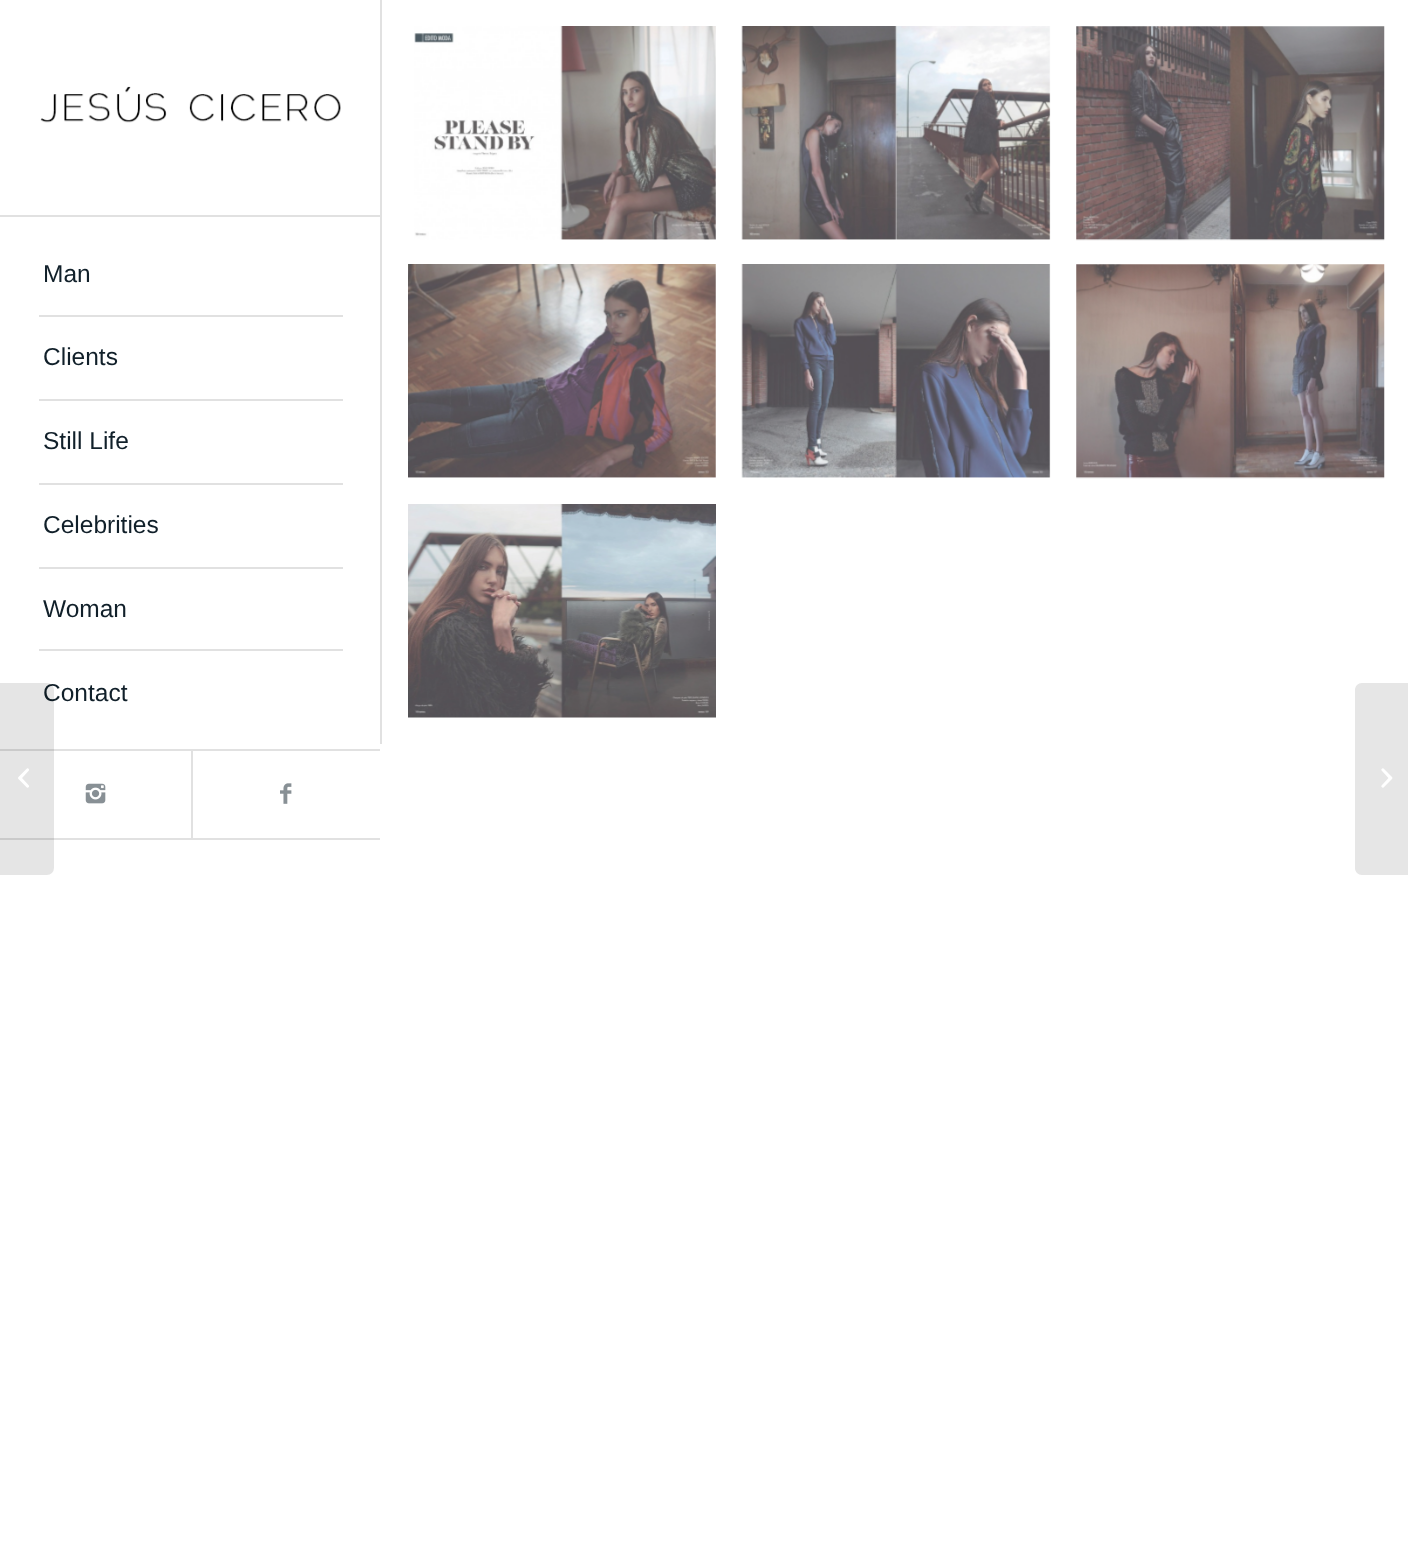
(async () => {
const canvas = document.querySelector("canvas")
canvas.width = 1408
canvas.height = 1556
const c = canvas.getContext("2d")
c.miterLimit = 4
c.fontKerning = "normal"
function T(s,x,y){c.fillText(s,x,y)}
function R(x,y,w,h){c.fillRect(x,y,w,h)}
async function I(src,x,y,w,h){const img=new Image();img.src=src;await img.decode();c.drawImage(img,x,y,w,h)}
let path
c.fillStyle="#fff"
R(0,0,1408,1556)
c.fillStyle="#e1e1e1"
R(0,838,380,2)
R(0,215,380,2)
await I("1.png",40,86,301,37)
R(39,315,304,2)
c.font="24.5px Liberation Sans"
c.fillStyle="#11202a"
T("Man",43,282)
c.fillStyle="#e1e1e1"
R(39,399,304,2)
c.fillStyle="#11202a"
T("Clients",43,365)
c.fillStyle="#e1e1e1"
R(39,483,304,2)
c.fillStyle="#11202a"
T("Still Life",43,449)
c.fillStyle="#e1e1e1"
R(39,567,304,2)
c.fillStyle="#11202a"
T("Celebrities",43,533)
c.fillStyle="#e1e1e1"
R(39,649,304,2)
c.fillStyle="#11202a"
T("Woman",43,617)
T("Contact",43,701)
c.fillStyle="#e1e1e1"
R(0,749,380,2)
await I("2.png",85,783,21,21)
R(191,751,2,87)
await I("3.png",280,783,12,21)
R(380,0,2,744)
await I("4.png",414,26,302,214)
await I("5.png",741,26,310,214)
await I("6.png",1076,26,309,215)
await I("7.png",408,264,308,214)
await I("8.png",741,264,310,214)
await I("9.png",1076,264,309,215)
await I("10.png",408,504,308,214)
c.fillStyle="#0000001a"
c.beginPath()
c.roundRect(0,683,54,192,[0,7,7,0])
c.fill()
await I("11.png",18,768,11,20)
c.fillStyle="#e6e6e6"
path = new Path2D("M1362 683h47v192h-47c-4 0-7-3-7-7v-178c0-4 3-7 7-7z")
c.fill(path)
await I("12.png",1381,768,12,20)
})()
